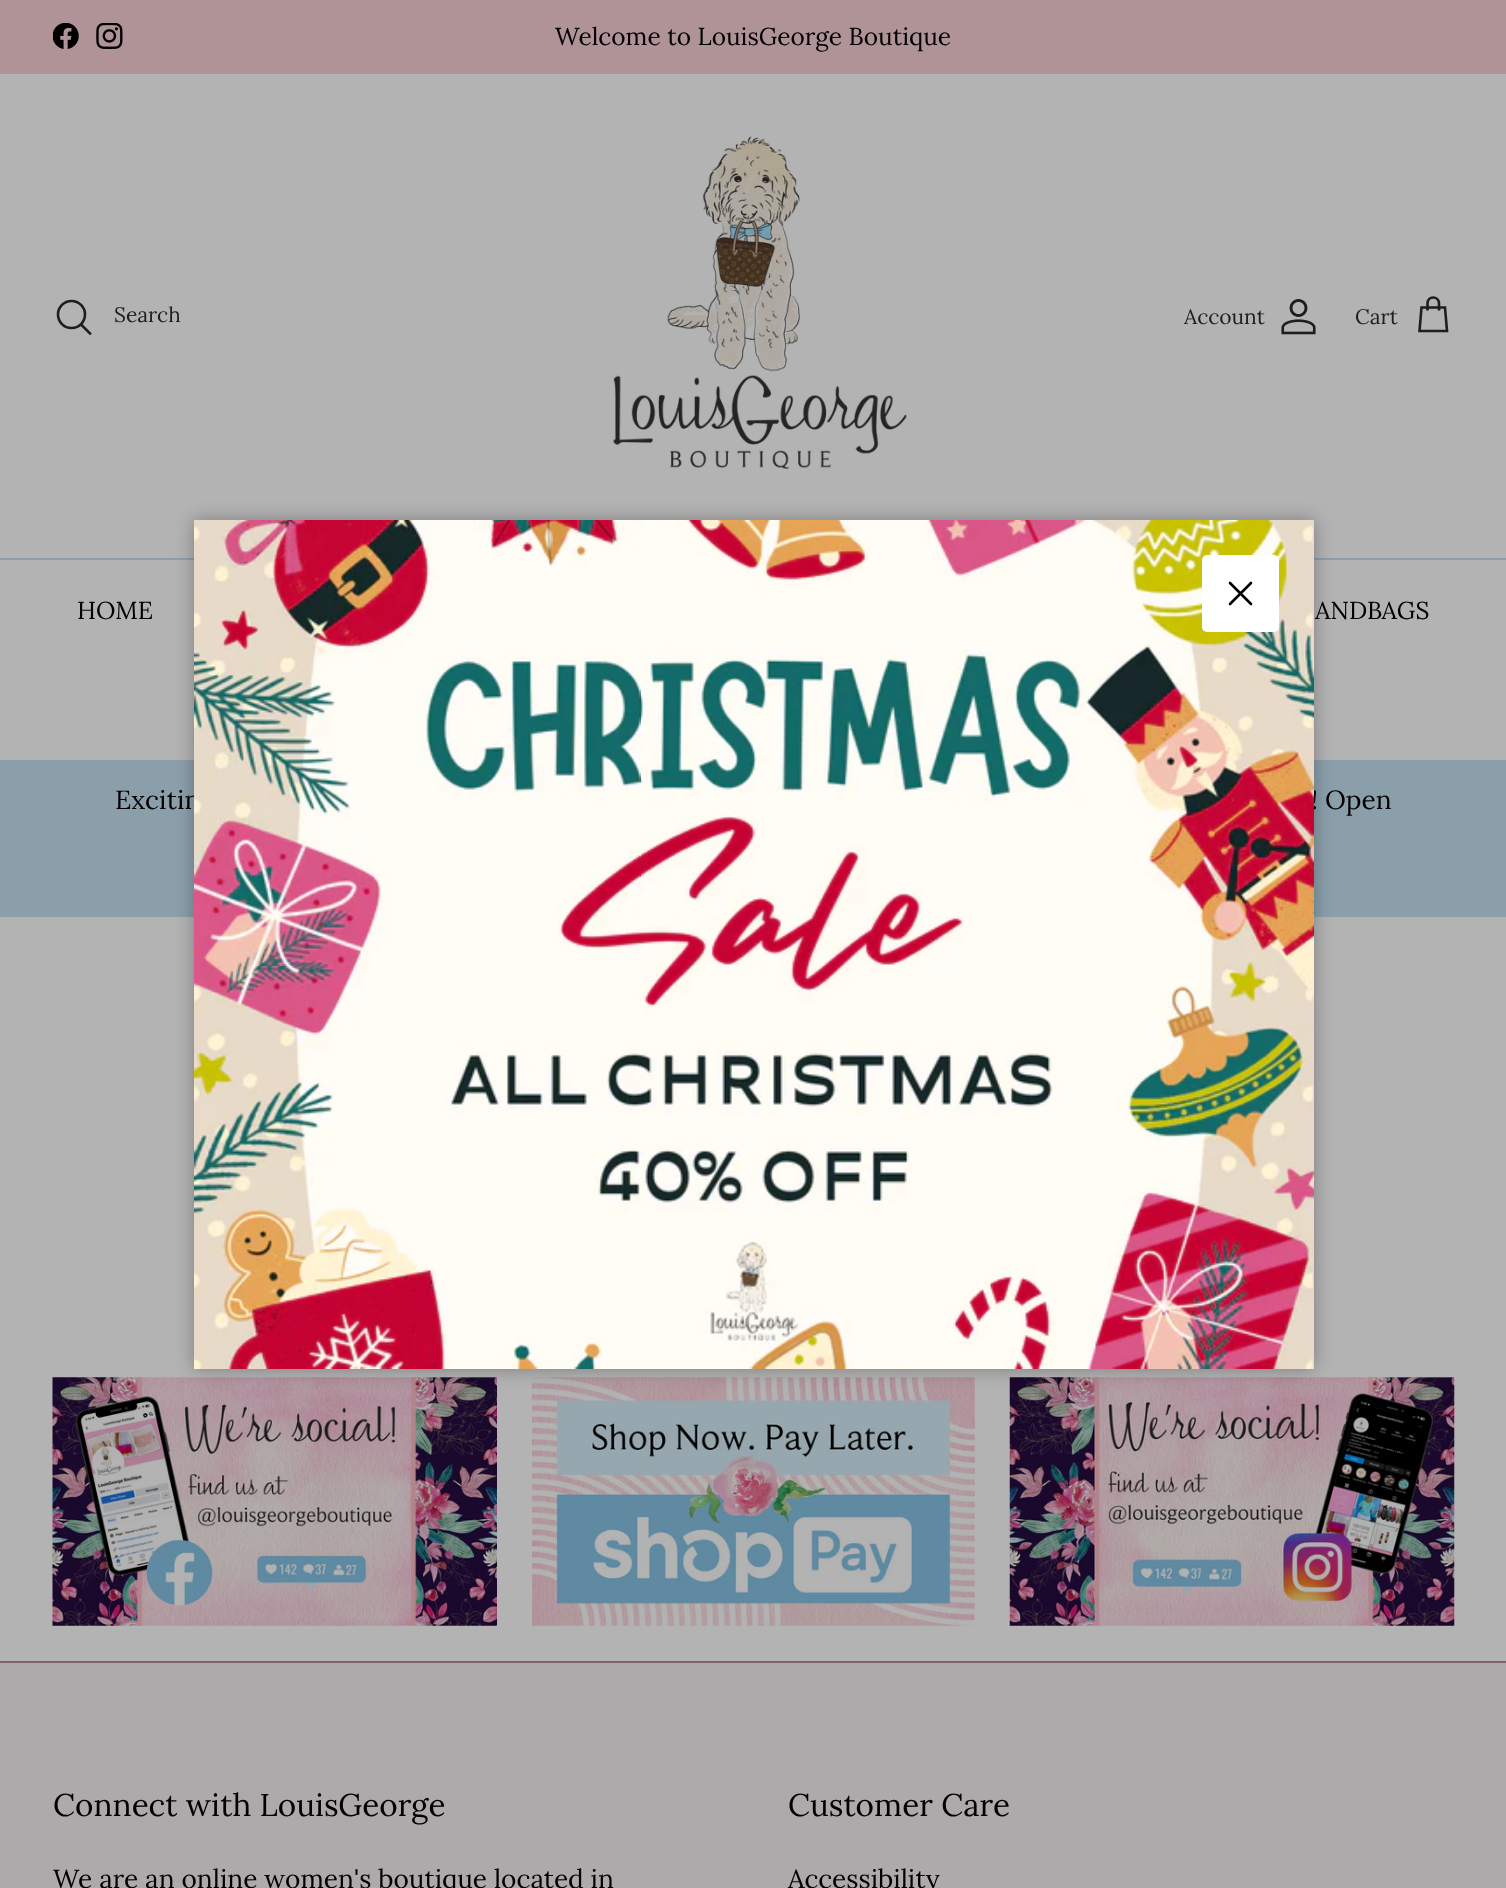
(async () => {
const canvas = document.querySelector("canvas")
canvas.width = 1506
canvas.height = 1888
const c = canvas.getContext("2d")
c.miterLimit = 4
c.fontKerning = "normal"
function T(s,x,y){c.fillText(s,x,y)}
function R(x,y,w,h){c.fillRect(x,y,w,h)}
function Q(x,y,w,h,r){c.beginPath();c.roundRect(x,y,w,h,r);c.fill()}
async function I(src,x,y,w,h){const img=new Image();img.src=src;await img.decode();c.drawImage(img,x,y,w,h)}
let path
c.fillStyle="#b3b3b3"
R(0,0,1506,1888)
c.fillStyle="#b09397"
R(0,0,1506,74)
await I("1.png",53,23,26,26)
await I("2.png",96,23,27,26)
c.font="24.5px Lora"
c.fillStyle="#000"
T("Welcome to LouisGeorge Boutique",555,45)
c.fillStyle="#8b9fab"
R(0,558,1506,2)
c.beginPath()
c.arc(71.5,314.5,13.5,0,7)
c.strokeStyle="#1e1e1e"
c.lineWidth=2.6
c.stroke()
c.font="21px Lora"
c.fillStyle="#1e1e1e"
T("Search",114,322)
path = new Path2D("M82 325.5l8 8")
c.lineCap="square"
c.stroke(path)
await I("3.png",613,136,294,334)
T("Account",1184,324)
await I("4.png",1281,299,35,36)
T("Cart",1355,324)
path = new Path2D("M1439 310.5v-7c0-3.5-2.5-6-6-6c-3 0-5.5 2.5-5.5 6v7m-6-3h23.5l2 23.5h-27.5z")
c.lineCap="butt"
c.stroke(path)
c.font="24.5px Lora"
c.fillStyle="#000"
T("HOME",77,619)
T("ANDBAGS",1315,619)
c.fillStyle="#8b9fab"
R(0,760,1506,157)
await I("6.png",52,1377,445,249)
await I("7.png",532,1377,443,249)
await I("8.png",1009,1377,446,249)
c.fillStyle="#0000004d"
c.filter="blur(9px)"
c.beginPath()
c.rect(194,520,1120,849)
c.fill()
c.filter="none"
c.font="26.25px Lora"
c.fillStyle="#000"
T("Excitin",115,809)
T("! Open",1311,809)
await I("5.png",194,520,1120,849)
c.fillStyle="#fff"
Q(1202,555,77,77,5)
path = new Path2D("M1251 583l-21 21m0-21l21 21")
c.strokeStyle="#000"
c.lineCap="round"
c.lineJoin="round"
c.stroke(path)
c.fillStyle="#aea9aa"
R(0,1663,1506,225)
c.fillStyle="#826368"
R(0,1661,1506,2)
c.font="31.5px Lora"
c.fillStyle="#000"
T("Connect with LouisGeorge",53,1816)
c.font="26.25px Lora"
T("We are an online women's boutique located in",53,1888)
c.font="31.5px Lora"
T("Customer Care",788,1816)
c.font="26.25px Lora"
T("Accessibility",788,1888)
})()
